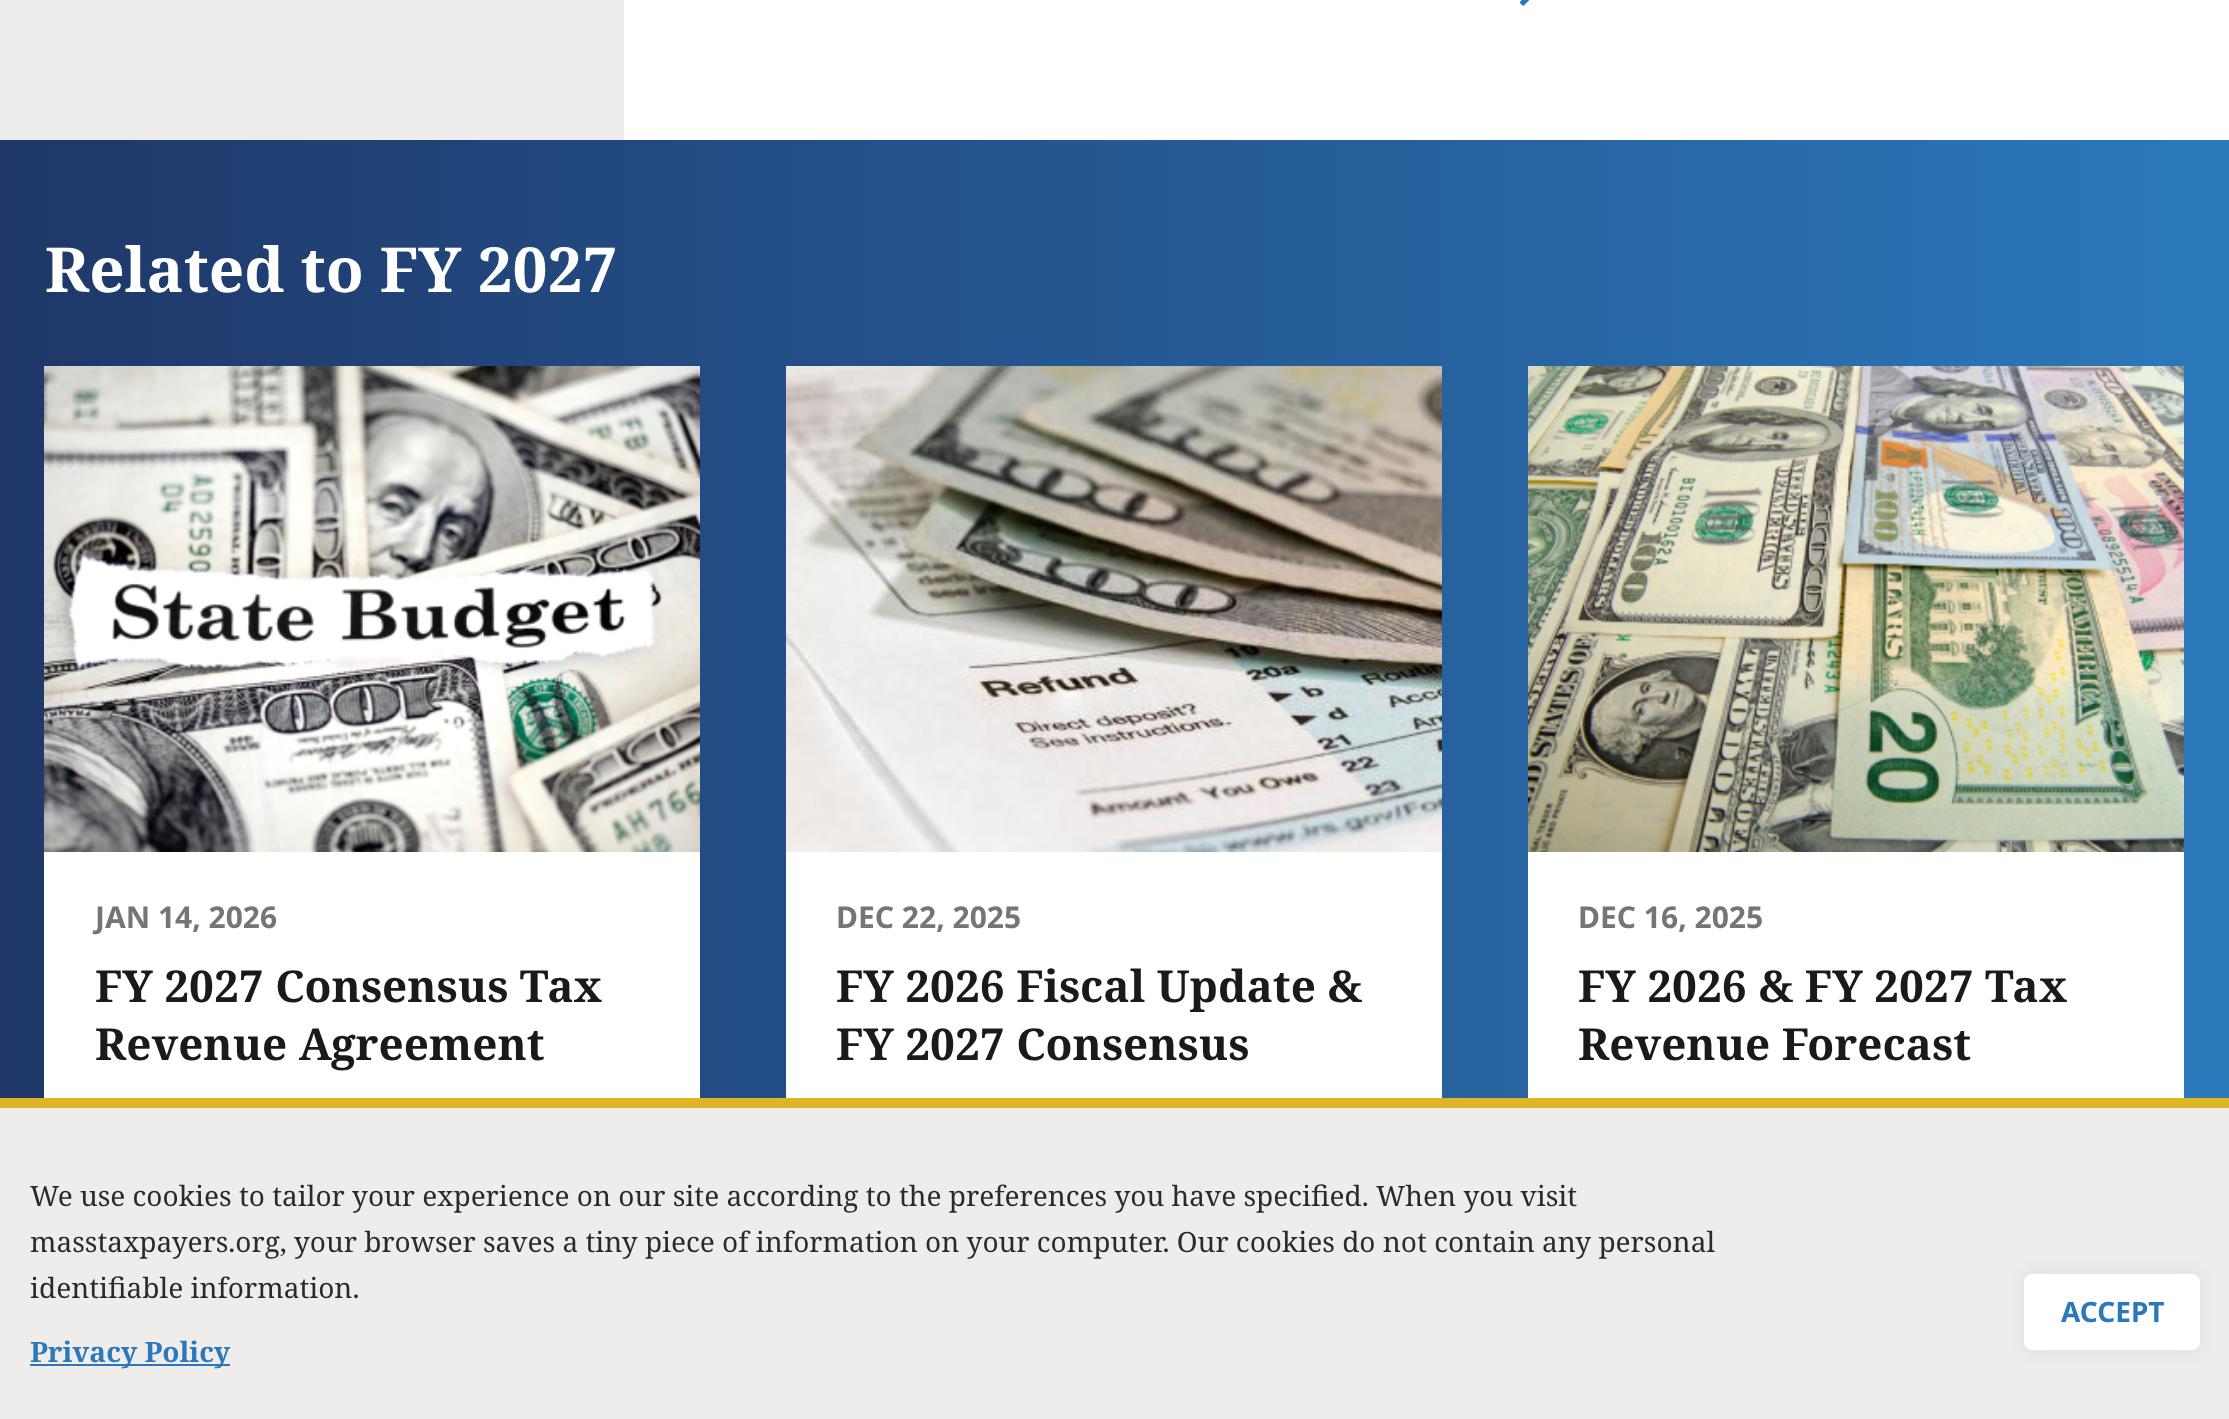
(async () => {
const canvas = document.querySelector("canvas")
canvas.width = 2229
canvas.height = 1419
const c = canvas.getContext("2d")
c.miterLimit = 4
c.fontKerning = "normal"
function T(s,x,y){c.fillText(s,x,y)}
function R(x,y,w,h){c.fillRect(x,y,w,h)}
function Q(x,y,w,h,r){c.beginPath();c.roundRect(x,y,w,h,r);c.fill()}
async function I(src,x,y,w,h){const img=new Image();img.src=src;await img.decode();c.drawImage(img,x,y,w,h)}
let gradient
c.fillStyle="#fff"
R(0,0,2229,1419)
c.fillStyle="#eeedeb"
R(0,0,624,140)
await I("1.png",1520,0,10,6)
gradient = c.createLinearGradient(0,731,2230,731)
gradient.addColorStop(0,"#1e3768")
gradient.addColorStop(1,"#2b79bb")
c.fillStyle = gradient
R(0,140,2229,958)
c.font="bold 62px Noto Serif"
c.fillStyle="#fff"
T("Related to FY 2027",45,292)
R(44,852,656,246)
await I("2.png",44,366,656,486)
c.font="bold 30px Noto Sans"
c.fillStyle="#757575"
T("JAN 14, 2026",95,928)
c.font="bold 44px Noto Serif"
c.fillStyle="#1a1a1a"
T("FY 2027 Consensus Tax",95,1002)
T("Revenue Agreement",95,1060)
c.fillStyle="#fff"
R(786,852,656,246)
await I("3.png",786,366,656,486)
c.font="bold 30px Noto Sans"
c.fillStyle="#757575"
T("DEC 22, 2025",836,928)
c.font="bold 44px Noto Serif"
c.fillStyle="#1a1a1a"
T("FY 2026 Fiscal Update &",836,1002)
T("FY 2027 Consensus",836,1060)
c.fillStyle="#fff"
R(1528,852,656,246)
await I("4.png",1528,366,656,486)
c.font="bold 30px Noto Sans"
c.fillStyle="#757575"
T("DEC 16, 2025",1578,928)
c.font="bold 44px Noto Serif"
c.fillStyle="#1a1a1a"
T("FY 2026 & FY 2027 Tax",1578,1002)
T("Revenue Forecast",1578,1060)
c.fillStyle="#eeedeb"
R(0,1108,2229,311)
c.fillStyle="#deb525"
R(0,1098,2229,10)
c.font="28px Noto Serif"
c.fillStyle="#2a2a2a"
T("We use cookies to tailor your experience on our site according to the preferences you have specified. When you visit",30,1206)
T("masstaxpayers.org, your browser saves a tiny piece of information on your computer. Our cookies do not contain any personal",30,1252)
T("identifiable information.",30,1298)
c.fillStyle="#2b79bb"
R(30,1364,200,2)
c.font="bold 28px Noto Serif"
T("Privacy Policy",30,1362)
c.fillStyle="#dcdcdc"
c.filter="blur(8px)"
c.beginPath()
c.roundRect(2024,1274,176,76,8)
c.fill()
c.filter="none"
c.fillStyle="#fff"
Q(2024,1274,176,76,8)
c.font="bold 28px Noto Sans"
c.fillStyle="#2b79bb"
T("ACCEPT",2061,1322)
})()
